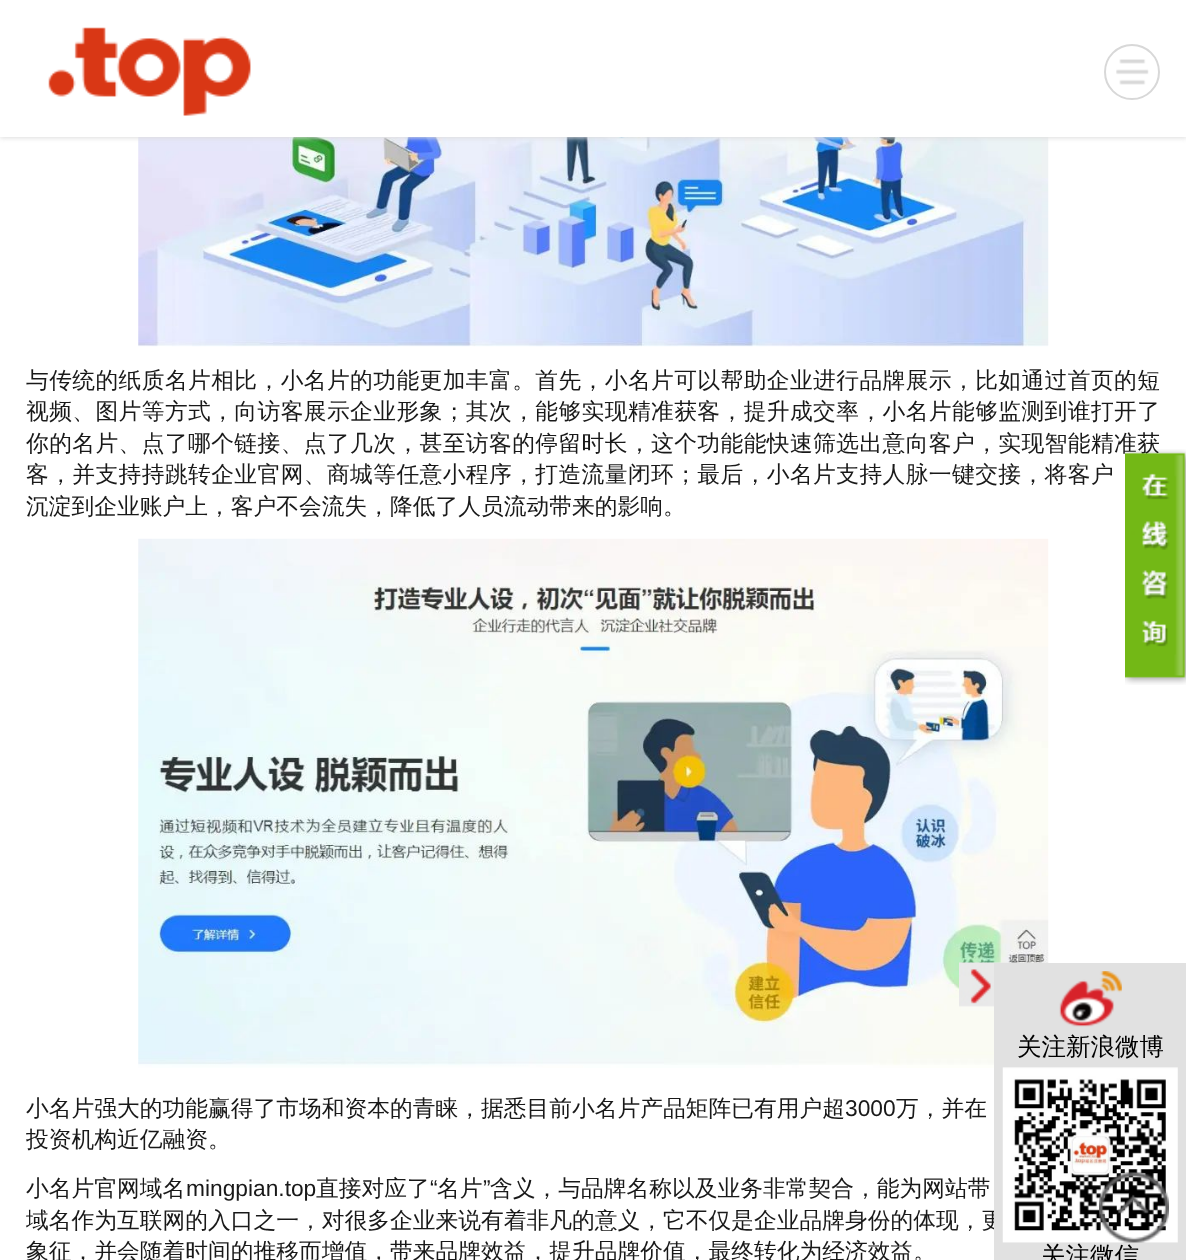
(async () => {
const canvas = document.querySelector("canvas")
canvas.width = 1186
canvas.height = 1260
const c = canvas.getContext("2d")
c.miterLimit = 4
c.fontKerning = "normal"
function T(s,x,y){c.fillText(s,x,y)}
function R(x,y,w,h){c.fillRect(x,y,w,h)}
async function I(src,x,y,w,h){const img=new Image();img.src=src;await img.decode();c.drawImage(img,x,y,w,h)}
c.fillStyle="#fff"
R(0,0,1186,1260)
await I("3.png",138,137,911,210)
c.fillStyle="#ddd"
c.filter="blur(2.5px)"
c.beginPath()
c.rect(0,2,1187,136)
c.fill()
c.filter="none"
c.fillStyle="#fff"
R(0,0,1186,137)
await I("1.png",48,27,203,89)
await I("2.png",1116,59,33,26)
c.beginPath()
c.arc(1132,72,27,0,7)
c.strokeStyle="#d8d8d8"
c.lineWidth=2
c.stroke()
c.letterSpacing="0.4px"
c.font="500 22.75px WenQuanYi Zen Hei"
c.fillStyle="#191919"
T("与传统的纸质名片相比，小名片的功能更加丰富。首先，小名片可以帮助企业进行品牌展示，比如通过首页的短",26,388)
T("视频、图片等方式，向访客展示企业形象；其次，能够实现精准获客，提升成交率，小名片能够监测到谁打开了",26,419)
T("你的名片、点了哪个链接、点了几次，甚至访客的停留时长，这个功能能快速筛选出意向客户，实现智能精准获",26,451)
T("客，并支持持跳转企业官网、商城等任意小程序，打造流量闭环；最后，小名片支持人脉一键交接，将客户",26,482)
c.letterSpacing="0px"
T("沉淀到企业账户上，客户不会流失，降低了人员流动带来的影响。",26,514)
await I("4.png",138,538,911,530)
T("小名片强大的功能赢得了市场和资本的青睐，据悉目前小名片产品矩阵已有用户超",26,1116)
c.font="22.75px Liberation Sans"
T("3000",845,1116)
c.font="500 22.75px WenQuanYi Zen Hei"
T("万，并在",896,1116)
T("投资机构近亿融资。",26,1147)
T("小名片官网域名",26,1196)
c.font="22.75px Liberation Sans"
T("mingpian.top",186,1196)
c.font="500 22.75px WenQuanYi Zen Hei"
T("直接对应了",316,1196)
c.font="22.75px Liberation Sans"
T("“",430,1196)
c.font="500 22.75px WenQuanYi Zen Hei"
T("名片",437,1196)
c.font="22.75px Liberation Sans"
T("”",483,1196)
c.font="500 22.75px WenQuanYi Zen Hei"
T("含义，与品牌名称以及业务非常契合，能为网站带",490,1196)
T("域名作为互联网的入口之一，对很多企业来说有着非凡的意义，它不仅是企业品牌身份的体现，更",26,1228)
T("象征，并会随着时间的推移而增值，带来品牌效益，提升品牌价值，最终转化为经济效益。",26,1259)
await I("5.png",1125,449,61,236)
await I("6.png",959,962,88,45)
c.fillStyle="#e1e1e1"
R(994,963,192,297)
await I("7.png",1059,971,63,56)
c.font="500 24.5px WenQuanYi Zen Hei"
c.fillStyle="#000"
T("关注新浪微博",1017,1055)
await I("8.png",1002,1067,176,176)
T("关注微信",1041,1264)
await I("9.png",1099,1172,70,71)
})()
